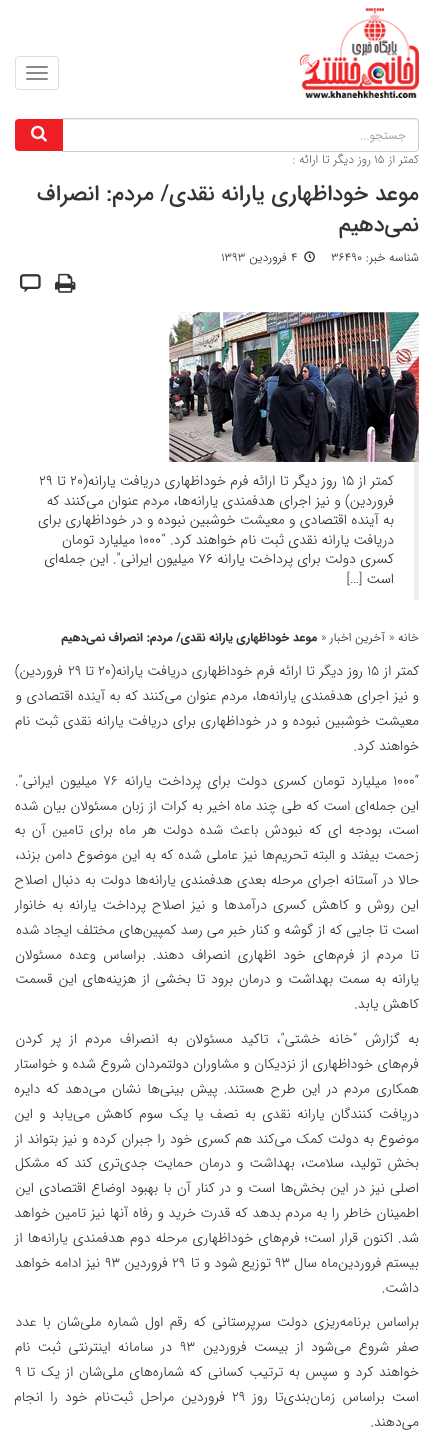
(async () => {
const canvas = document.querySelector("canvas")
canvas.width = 434
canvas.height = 1445
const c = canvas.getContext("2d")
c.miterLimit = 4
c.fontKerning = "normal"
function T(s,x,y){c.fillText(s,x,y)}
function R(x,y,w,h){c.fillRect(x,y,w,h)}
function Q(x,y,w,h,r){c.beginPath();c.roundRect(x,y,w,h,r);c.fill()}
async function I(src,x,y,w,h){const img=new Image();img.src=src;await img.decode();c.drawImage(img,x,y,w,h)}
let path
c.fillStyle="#fff"
R(0,0,434,1445)
await I("1.png",300,8,119,90)
c.beginPath()
c.roundRect(15.5,56.5,43,33,3.5)
c.strokeStyle="#ddd"
c.stroke()
c.fillStyle="#888"
Q(26,66,22,2,1)
Q(26,72,22,2,1)
Q(26,78,22,2,1)
c.fillStyle="#ececec"
path = new Path2D("M63 120h352c2 0 3 1 3 3v-1c0-2-1-3-3-3h-352z")
c.fill(path)
c.beginPath()
c.roundRect(62.5,118.5,356,33,[0,3.5,3.5,0])
c.strokeStyle="#ccc"
c.stroke()
c.direction="rtl"
c.font="300 12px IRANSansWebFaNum"
c.fillStyle="#999"
T("جستجو...",406,139)
c.fillStyle="#ef1e24"
c.beginPath()
c.roundRect(15,119,48,32,[4,0,0,4])
c.fill()
await I("2.png",31,125,16,17)
c.font="200 12px IRANSansWebFaNum"
c.fillStyle="#333"
T("کمتر از",419,163)
c.direction="ltr"
T("۱۵",374,163)
c.direction="rtl"
T("روز دیگر تا ارائه :",371,163)
c.font="500 22px IRANSansWebFaNum"
T("موعد خوداظهاری یارانه نقدی/ مردم: انصراف",419,200)
T("نمی‌دهیم",419,231)
c.font="300 12px IRANSansWebFaNum"
T("شناسه خبر:",419,261)
c.direction="ltr"
T("36490",331,261)
await I("3.png",304,251,11,12)
T("4",291,261)
c.direction="rtl"
T("فروردین",287,261)
c.direction="ltr"
T("1393",221,261)
await I("4.png",55,273,21,20)
await I("5.png",20,274,21,19)
await I("6.png",169,312,250,150)
c.fillStyle="#eee"
R(414,462,5,138)
c.direction="rtl"
c.font="300 14px IRANSansWebFaNum"
c.fillStyle="#333"
T("کمتر از",394,485)
c.direction="ltr"
T("۱۵",342,485)
c.direction="rtl"
T("روز دیگر تا ارائه فرم خوداظهاری دریافت یارانه(",337,485)
c.direction="ltr"
T("۲۰",70,485)
c.direction="rtl"
T("تا",66,485)
c.direction="ltr"
T("۲۹",39,485)
c.direction="rtl"
T("فروردین) و نیز اجرای هدفمندی یارانه‌ها، مردم عنوان می‌کنند که",394,505)
T("به آینده اقتصادی و معیشت خوشبین نبوده و در خوداظهاری برای",394,524)
T("دریافت یارانه نقدی ثبت نام خواهند کرد. “",394,544)
c.direction="ltr"
T("۱۰۰۰",139,544)
c.direction="rtl"
T("میلیارد تومان",135,544)
T("کسری دولت برای پرداخت یارانه",394,563)
c.direction="ltr"
T("۷۶",198,563)
c.direction="rtl"
T("میلیون ایرانی”. این جمله‌ای",194,563)
T("است […]",394,583)
c.font="300 12px IRANSansWebFaNum"
T("خانه",419,641)
c.direction="ltr"
T("»",389,641)
c.direction="rtl"
T("آخرین اخبار",385,641)
c.direction="ltr"
T("»",321,641)
c.direction="rtl"
c.font="bold 12px IRANSansWebFaNum"
T("موعد خوداظهاری یارانه نقدی/ مردم: انصراف نمی‌دهیم",317,641)
c.wordSpacing="0.25px"
c.font="300 13.8px IRANSansWebFaNum"
T("کمتر از",419,675)
c.wordSpacing="0px"
c.direction="ltr"
T("۱۵",367,675)
c.wordSpacing="0.25px"
c.direction="rtl"
T("روز دیگر تا ارائه فرم خوداظهاری دریافت یارانه(",363,675)
c.wordSpacing="0px"
c.direction="ltr"
T("۲۰",98,675)
c.direction="rtl"
T("تا",94,675)
c.direction="ltr"
T("۲۹",68,675)
c.direction="rtl"
T("فروردین)",63,675)
c.wordSpacing="0.5px"
T("و نیز اجرای هدفمندی یارانه‌ها، مردم عنوان می‌کنند که به آینده اقتصادی و",419,700)
T("معیشت خوشبین نبوده و در خوداظهاری برای دریافت یارانه نقدی ثبت نام",419,725)
c.wordSpacing="0px"
T("خواهند کرد.",419,750)
c.direction="ltr"
T("۱۰۰۰“",393,785)
c.wordSpacing="2px"
c.direction="rtl"
T("میلیارد تومان کسری دولت برای پرداخت یارانه",387,785)
c.wordSpacing="0px"
c.direction="ltr"
T("۷۶",103,785)
c.wordSpacing="2px"
c.direction="rtl"
T("میلیون ایرانی”.",97,785)
c.wordSpacing="0.4px"
T("این جمله‌ای است که طی چند ماه اخیر به کرات از زبان مسئولان بیان شده",419,810)
c.wordSpacing="2.25px"
T("است، بودجه ای که نبودش باعث شده دولت هر ماه برای تامین آن به",419,834)
c.wordSpacing="0.6px"
T("زحمت بیفتد و البته تحریم‌ها نیز عاملی شده که به این موضوع دامن بزند،",419,859)
c.wordSpacing="0.5px"
T("حالا در آستانه اجرای مرحله بعدی هدفمندی یارانه‌ها دولت به دنبال اصلاح",419,884)
c.wordSpacing="1.9px"
T("این روش و کاهش کسری درآمدها و نیز اصلاح پرداخت یارانه به خانوار",419,909)
c.wordSpacing="0px"
T("است تا جایی که از گوشه و کنار خبر می رسد کمپین‌های مختلف ایجاد شده",419,934)
c.wordSpacing="3.1px"
T("تا مردم از فرم‌های خود اظهاری انصراف دهند. براساس وعده مسئولان",419,959)
c.wordSpacing="1.4px"
T("یارانه‌ به سمت بهداشت و درمان برود تا بخشی‌ از هزینه‌های این قسمت",419,983)
c.wordSpacing="0px"
T("کاهش یابد.",419,1008)
c.wordSpacing="4px"
T("به گزارش “خانه خشتی”، تاکید مسئولان به انصراف مردم از پر کردن",419,1043)
c.wordSpacing="0.25px"
T("فرم‌های خوداظهاری از نزدیکان و مشاوران دولتمردان شروع شده و خواستار",419,1068)
c.wordSpacing="2px"
T("همکاری مردم در این طرح هستند. پیش بینی‌ها نشان می‌دهد که دایره",419,1093)
c.wordSpacing="2.25px"
T("دریافت کنندگان یارانه نقدی به نصف یا یک سوم کاهش می‌یابد و این",419,1118)
c.wordSpacing="0.5px"
T("موضوع به دولت کمک می‌کند هم کسری خود را جبران کرده و نیز بتواند از",419,1143)
c.wordSpacing="2px"
T("بخش تولید، سلامت، بهداشت و درمان حمایت جدی‌تری کند که مشکل",419,1167)
c.wordSpacing="1.1px"
T("اصلی نیز در این بخش‌ها است و در کنار آن با بهبود اوضاع اقتصادی این",419,1192)
c.wordSpacing="0.5px"
T("اطمینان خاطر را به مردم بدهد که قدرت خرید و رفاه آنها نیز تامین خواهد",419,1217)
c.wordSpacing="0.9px"
T("شد. اکنون قرار است؛ فرم‌های خوداظهاری مرحله دوم هدفمندی یارانه‌ها از",419,1242)
c.wordSpacing="0.25px"
T("بیستم فروردین‌ماه سال",419,1267)
c.wordSpacing="0px"
c.direction="ltr"
T("۹۳",275,1267)
c.direction="rtl"
T("توزیع شود و تا",271,1267)
c.direction="ltr"
T("۲۹",172,1267)
c.direction="rtl"
T("فروردین",168,1267)
c.direction="ltr"
T("۹۳",105,1267)
c.direction="rtl"
T("نیز ادامه خواهد",100,1267)
T("داشت.",419,1292)
c.wordSpacing="2px"
T("براساس برنامه‌ریزی دولت سرپرستانی که رقم اول شماره ملی‌شان با عدد",419,1326)
c.wordSpacing="3.25px"
T("صفر شروع می‌شود از بیست فروردین",419,1351)
c.wordSpacing="0px"
c.direction="ltr"
T("۹۳",180,1351)
c.wordSpacing="3.25px"
c.direction="rtl"
T("در سامانه اینترنتی ثبت نام",172,1351)
c.wordSpacing="1.5px"
T("خواهند کرد و سپس به ترتیب کسانی که شماره‌های ملی‌‌شان از یک تا",419,1376)
c.wordSpacing="0px"
c.direction="ltr"
T("۹",15,1376)
c.wordSpacing="3px"
c.direction="rtl"
T("است براساس زمان‌بندی‌تا روز",419,1401)
c.wordSpacing="0px"
c.direction="ltr"
T("۲۹",232,1401)
c.wordSpacing="3px"
c.direction="rtl"
T("فروردین مراحل ثبت‌نام خود را انجام",225,1401)
c.wordSpacing="0px"
T("می‌دهند.",419,1426)
})()
